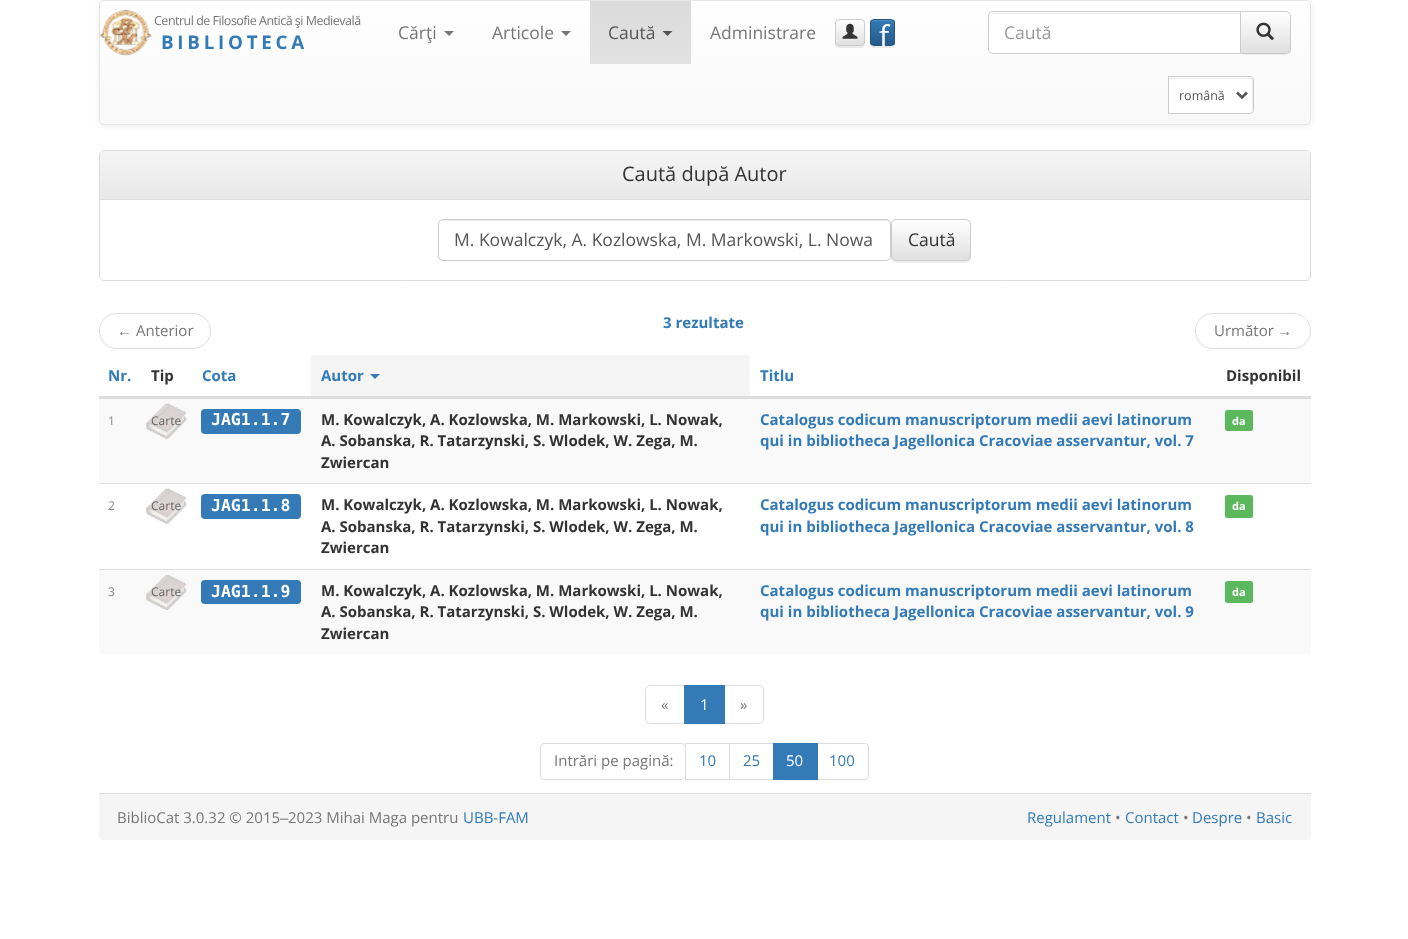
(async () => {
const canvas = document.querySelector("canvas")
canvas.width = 1408
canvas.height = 939
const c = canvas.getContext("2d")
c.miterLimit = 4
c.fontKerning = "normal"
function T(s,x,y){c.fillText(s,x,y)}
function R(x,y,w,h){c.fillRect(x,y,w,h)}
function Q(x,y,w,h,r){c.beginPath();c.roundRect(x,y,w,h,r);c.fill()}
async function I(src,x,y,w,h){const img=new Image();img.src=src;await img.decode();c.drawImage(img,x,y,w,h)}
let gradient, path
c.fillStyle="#fff"
R(0,0,1408,939)
c.fillStyle="#00000012"
c.filter="blur(3px)"
c.beginPath()
c.roundRect(99,1,1212,125,5)
c.fill()
c.filter="none"
c.save()
c.beginPath()
c.roundRect(99,0,1212,125,5)
c.clip()
gradient = c.createLinearGradient(705,1.2,705,124)
gradient.addColorStop(0,"#fff")
gradient.addColorStop(1,"#f8f8f8")
c.fillStyle = gradient
R(99,1,1212,123)
c.restore()
c.beginPath()
c.roundRect(99.5,.5,1211,124,4.5)
c.strokeStyle="#e7e7e7"
c.stroke()
await I("1.png",100,9,52,47)
c.letterSpacing="-0.5px"
c.font="12.5px Open Sans"
c.fillStyle="#777"
T("Centrul de Filosofie Antică şi Medievală",154,25)
c.letterSpacing="3.75px"
c.font="bold 18.75px Open Sans"
c.fillStyle="#337ab7"
T("BIBLIOTECA",161,49)
c.letterSpacing="0px"
c.font="17.5px Open Sans"
c.fillStyle="#777"
T("Cărţi",398,39)
path = new Path2D("M444 31h10l-5 5z")
c.fill(path)
T("Articole",492,39)
path = new Path2D("M561 31h10l-5 5z")
c.fill(path)
gradient = c.createLinearGradient(641,1.2,641,64)
gradient.addColorStop(0,"#dbdbdb")
gradient.addColorStop(1,"#e2e2e2")
c.fillStyle = gradient
R(590,1,101,63)
c.fillStyle="#555"
T("Caută",608,39)
path = new Path2D("M662.5 31h10l-5 5z")
c.fill(path)
c.fillStyle="#777"
T("Administrare",710,39)
c.fillStyle="#00000012"
c.filter="blur(0.5px)"
c.beginPath()
c.roundRect(835,20,30,28,4)
c.fill()
c.filter="none"
c.save()
c.beginPath()
c.roundRect(835,19,30,27,4)
c.clip()
gradient = c.createLinearGradient(850,20,850,45)
gradient.addColorStop(0,"#fff")
gradient.addColorStop(1,"#e0e0e0")
c.fillStyle = gradient
R(835,20,30,25)
c.restore()
c.fillStyle="#fefefe"
path = new Path2D("M839 21c5.5 0 20.5-1.5 24 1l1 2.5c0-5-1.5-4.5-6.5-4.5h-15c-5.5 0-6.5-.5-6.5 5c0-2 1-4 3-4zm-2.5 22.5l-.5-6.5c0 2-.5 5 .5 6.5z")
c.fill(path,"evenodd")
c.beginPath()
c.roundRect(835.5,19.5,29,26,3.5)
c.strokeStyle="#ccc"
c.stroke()
await I("2.png",842,23,16,16)
c.fillStyle="#00000012"
c.filter="blur(0.5px)"
c.beginPath()
c.roundRect(870,20,25,28,4)
c.fill()
c.filter="none"
c.save()
c.beginPath()
c.roundRect(870,19,25,27,4)
c.clip()
gradient = c.createLinearGradient(883,20,883,45)
gradient.addColorStop(0,"#337ab7")
gradient.addColorStop(1,"#265a88")
c.fillStyle = gradient
R(870,20,25,25)
c.restore()
c.fillStyle="#528dc1"
path = new Path2D("M874 21h17c2 0 3 1 3 3c0-4.5-1.5-4-5.5-4h-12c-4 0-5.5-.5-5.5 4c0-2 1-3 3-3z")
c.fill(path)
c.beginPath()
c.roundRect(870.5,19.5,24,26,3.5)
c.strokeStyle="#245580"
c.stroke()
c.font="30px Open Sans"
c.fillStyle="#fff"
T("f",879,47)
c.beginPath()
c.roundRect(988,11,253,43,[5,0,0,5])
c.fill()
c.fillStyle="#ececec"
path = new Path2D("M992 14h248v-1h-247c-2 0-4 2-4 4v1c0-3 1-4 3-4z")
c.fill(path)
c.beginPath()
c.roundRect(988.5,11.5,252,42,[4.5,0,0,4.5])
c.strokeStyle="#ccc"
c.stroke()
c.font="17.5px Open Sans"
c.fillStyle="#999"
T("Caută",1004,39)
c.fillStyle="#00000012"
c.filter="blur(0.5px)"
c.beginPath()
c.roundRect(1240,13,51,42,5)
c.fill()
c.filter="none"
c.fillStyle="#fff"
c.beginPath()
c.roundRect(1240,11,51,43,[0,5,5,0])
c.fill()
c.save()
c.beginPath()
c.roundRect(1240,11,51,43,[0,5,5,0])
c.clip()
gradient = c.createLinearGradient(1266,12,1266,53)
gradient.addColorStop(0,"#fff")
gradient.addColorStop(1,"#e0e0e0")
c.fillStyle = gradient
R(1241,13,50,40)
c.restore()
c.beginPath()
c.roundRect(1240.5,11.5,50,42,[0,4.5,4.5,0])
c.stroke()
await I("3.png",1256,22,18,18)
c.beginPath()
c.roundRect(1168,76,86,38,[0,4,4,0])
c.fill()
c.fillStyle="#ececec"
path = new Path2D("M1169 79h81c3 0 2 6 2 7v27c0-1 1-2 1-3v-30c0-1-1-2-3-2h-81z")
c.fill(path)
c.beginPath()
c.roundRect(1168.5,76.5,85,37,[0,3.5,3.5,0])
c.stroke()
path = new Path2D("M1237 92.5l5 5l5-5")
c.strokeStyle="#555"
c.lineWidth=2.5
c.stroke(path)
c.font="12.5px Open Sans"
c.fillStyle="#555"
T("română",1179,100)
c.beginPath()
c.roundRect(99.5,150.5,1211,130,4.5)
c.strokeStyle="#ddd"
c.lineWidth=1
c.stroke()
gradient = c.createLinearGradient(705,151,705,199)
gradient.addColorStop(0,"#f5f5f5")
gradient.addColorStop(1,"#e8e8e8")
c.fillStyle = gradient
c.beginPath()
c.roundRect(100,151,1210,48,[4,4,0,0])
c.fill()
c.fillStyle="#ddd"
R(100,199,1210,1)
c.font="20px Open Sans"
c.fillStyle="#333"
T("Caută după Autor",622,181)
c.fillStyle="#ececec"
path = new Path2D("M442 221h444c2 0 4 2 4 4c0-3-1-5-4-5h-443l-2 1l-1 1l-1 3c0-2 1-4 3-4z")
c.fill(path)
c.beginPath()
c.roundRect(438.5,219.5,452,41,4.5)
c.strokeStyle="#ccc"
c.stroke()
c.font="17.5px Open Sans"
c.fillStyle="#555"
T("M. Kowalczyk, A. Kozlowska, M. Markowski, L. Nowa",454,246)
c.fillStyle="#00000012"
c.filter="blur(0.5px)"
c.beginPath()
c.roundRect(891,220,80,43,5)
c.fill()
c.filter="none"
c.save()
c.beginPath()
c.roundRect(891,219,80,42,5)
c.clip()
gradient = c.createLinearGradient(931,220,931,260)
gradient.addColorStop(0,"#fff")
gradient.addColorStop(1,"#e0e0e0")
c.fillStyle = gradient
R(891,220,80,40)
c.restore()
c.beginPath()
c.roundRect(891.5,219.5,79,41,4.5)
c.stroke()
c.fillStyle="#333"
T("Caută",908,246)
c.font="bold 15px Open Sans"
c.fillStyle="#337ab7"
T("3 rezultate",663,328)
c.beginPath()
c.roundRect(99.5,313.5,111,35,17.5)
c.strokeStyle="#ddd"
c.stroke()
c.font="15px Liberation Sans"
c.fillStyle="#777"
T("←",117,336)
c.font="15px Open Sans"
T("Anterior",136,336)
c.beginPath()
c.roundRect(1195.5,313.5,115,35,17.5)
c.stroke()
T("Următor",1214,336)
c.font="15px Liberation Sans"
T("→",1277,336)
c.font="bold 15px Open Sans"
c.fillStyle="#337ab7"
T("Nr.",108,381)
c.fillStyle="#333"
T("Tip",151,381)
c.fillStyle="#337ab7"
T("Cota",202,381)
c.fillStyle="#f5f5f5"
R(311,355,439,41)
c.fillStyle="#337ab7"
T("Autor",321,381)
path = new Path2D("M370 374h10l-5 5z")
c.fill(path)
T("Titlu",760,381)
c.fillStyle="#ddd"
R(99,396,1212,3)
c.fillStyle="#333"
T("Disponibil",1226,381)
c.fillStyle="#f9f9f9"
R(99,399,1212,84)
c.font="12px Open Sans"
c.fillStyle="#888"
T("1",108,425)
await I("4.png",146,403,41,36)
c.fillStyle="#666"
T("Carte",151,425)
c.fillStyle="#337ab7"
Q(201,409,100,25,4)
c.font="bold 16.5px DejaVu Sans Mono"
c.fillStyle="#fff"
T("JAG1.1.7",211,425)
c.font="bold 15px Open Sans"
c.fillStyle="#333"
T("M. Kowalczyk, A. Kozlowska, M. Markowski, L. Nowak,",321,425)
T("A. Sobanska, R. Tatarzynski, S. Wlodek, W. Zega, M.",321,446)
T("Zwiercan",321,468)
c.fillStyle="#337ab7"
T("Catalogus codicum manuscriptorum medii aevi latinorum",760,425)
T("qui in bibliotheca Jagellonica Cracoviae asservantur, vol. 7",760,446)
c.fillStyle="#5cb85c"
Q(1225,410,28,21,2.5)
c.font="bold 11px Open Sans"
c.fillStyle="#fff"
T("da",1232,425)
c.font="12px Open Sans"
c.fillStyle="#888"
T("2",108,510)
await I("5.png",146,488,41,36)
c.fillStyle="#666"
T("Carte",151,510)
c.fillStyle="#337ab7"
Q(201,494,100,25,4)
c.font="bold 16.5px DejaVu Sans Mono"
c.fillStyle="#fff"
T("JAG1.1.8",211,511)
c.font="bold 15px Open Sans"
c.fillStyle="#333"
T("M. Kowalczyk, A. Kozlowska, M. Markowski, L. Nowak,",321,510)
T("A. Sobanska, R. Tatarzynski, S. Wlodek, W. Zega, M.",321,532)
T("Zwiercan",321,553)
c.fillStyle="#337ab7"
T("Catalogus codicum manuscriptorum medii aevi latinorum",760,510)
T("qui in bibliotheca Jagellonica Cracoviae asservantur, vol. 8",760,532)
c.fillStyle="#ddd"
R(99,483,1212,1)
c.fillStyle="#5cb85c"
Q(1225,495,28,23,2.5)
c.font="bold 11px Open Sans"
c.fillStyle="#fff"
T("da",1232,510)
c.fillStyle="#f9f9f9"
R(99,570,1212,84)
c.font="12px Open Sans"
c.fillStyle="#888"
T("3",108,596)
await I("6.png",146,575,41,35)
c.fillStyle="#666"
T("Carte",151,596)
c.fillStyle="#337ab7"
Q(201,580,100,24,4)
c.font="bold 16.5px DejaVu Sans Mono"
c.fillStyle="#fff"
T("JAG1.1.9",211,597)
c.font="bold 15px Open Sans"
c.fillStyle="#333"
T("M. Kowalczyk, A. Kozlowska, M. Markowski, L. Nowak,",321,596)
T("A. Sobanska, R. Tatarzynski, S. Wlodek, W. Zega, M.",321,617)
T("Zwiercan",321,639)
c.fillStyle="#337ab7"
T("Catalogus codicum manuscriptorum medii aevi latinorum",760,596)
T("qui in bibliotheca Jagellonica Cracoviae asservantur, vol. 9",760,617)
c.fillStyle="#ddd"
R(99,569,1212,1)
c.fillStyle="#5cb85c"
Q(1225,581,28,22,2.5)
c.font="bold 11px Open Sans"
c.fillStyle="#fff"
T("da",1232,596)
c.beginPath()
c.roundRect(645.5,685.5,39,38,[4.5,0,0,4.5])
c.stroke()
c.font="15px Open Sans"
c.fillStyle="#777"
T("«",661,710)
c.beginPath()
c.roundRect(724.5,685.5,39,38,[0,4.5,4.5,0])
c.stroke()
c.fillStyle="#337ab7"
R(684,685,41,39)
c.fillStyle="#fff"
T("1",700,710)
c.fillStyle="#777"
T("»",740,710)
c.beginPath()
c.roundRect(540.5,743.5,145,36,[3.5,4.5,4.5,3.5])
c.stroke()
T("Intrări pe pagină:",554,766)
c.strokeRect(685.5,743.5,44,36)
c.fillStyle="#337ab7"
T("10",699,766)
c.strokeRect(729.5,743.5,44,36)
T("25",743,766)
c.beginPath()
c.roundRect(816.5,743.5,52,36,[0,3.5,3.5,0])
c.stroke()
R(773,743,45,37)
c.fillStyle="#fff"
T("50",786,766)
c.fillStyle="#337ab7"
T("100",829,766)
c.fillStyle="#f5f5f5"
c.beginPath()
c.roundRect(99,793,1212,47,[0,0,4,4])
c.fill()
c.fillStyle="#ddd"
R(99,793,1212,1)
c.fillStyle="#777"
T("BiblioCat 3.0.32 © 2015",117,823)
c.font="15px Liberation Sans"
T("‒",280,823)
c.font="15px Open Sans"
T("2023 Mihai Maga pentru",288,823)
c.fillStyle="#337ab7"
T("UBB-FAM",463,823)
T("Regulament",1027,823)
c.fillStyle="#777"
T("•",1115,823)
c.fillStyle="#337ab7"
T("Contact",1125,823)
c.fillStyle="#777"
T("•",1183,823)
c.fillStyle="#337ab7"
T("Despre",1192,823)
c.fillStyle="#777"
T("•",1246,823)
c.fillStyle="#337ab7"
T("Basic",1256,823)
})()
